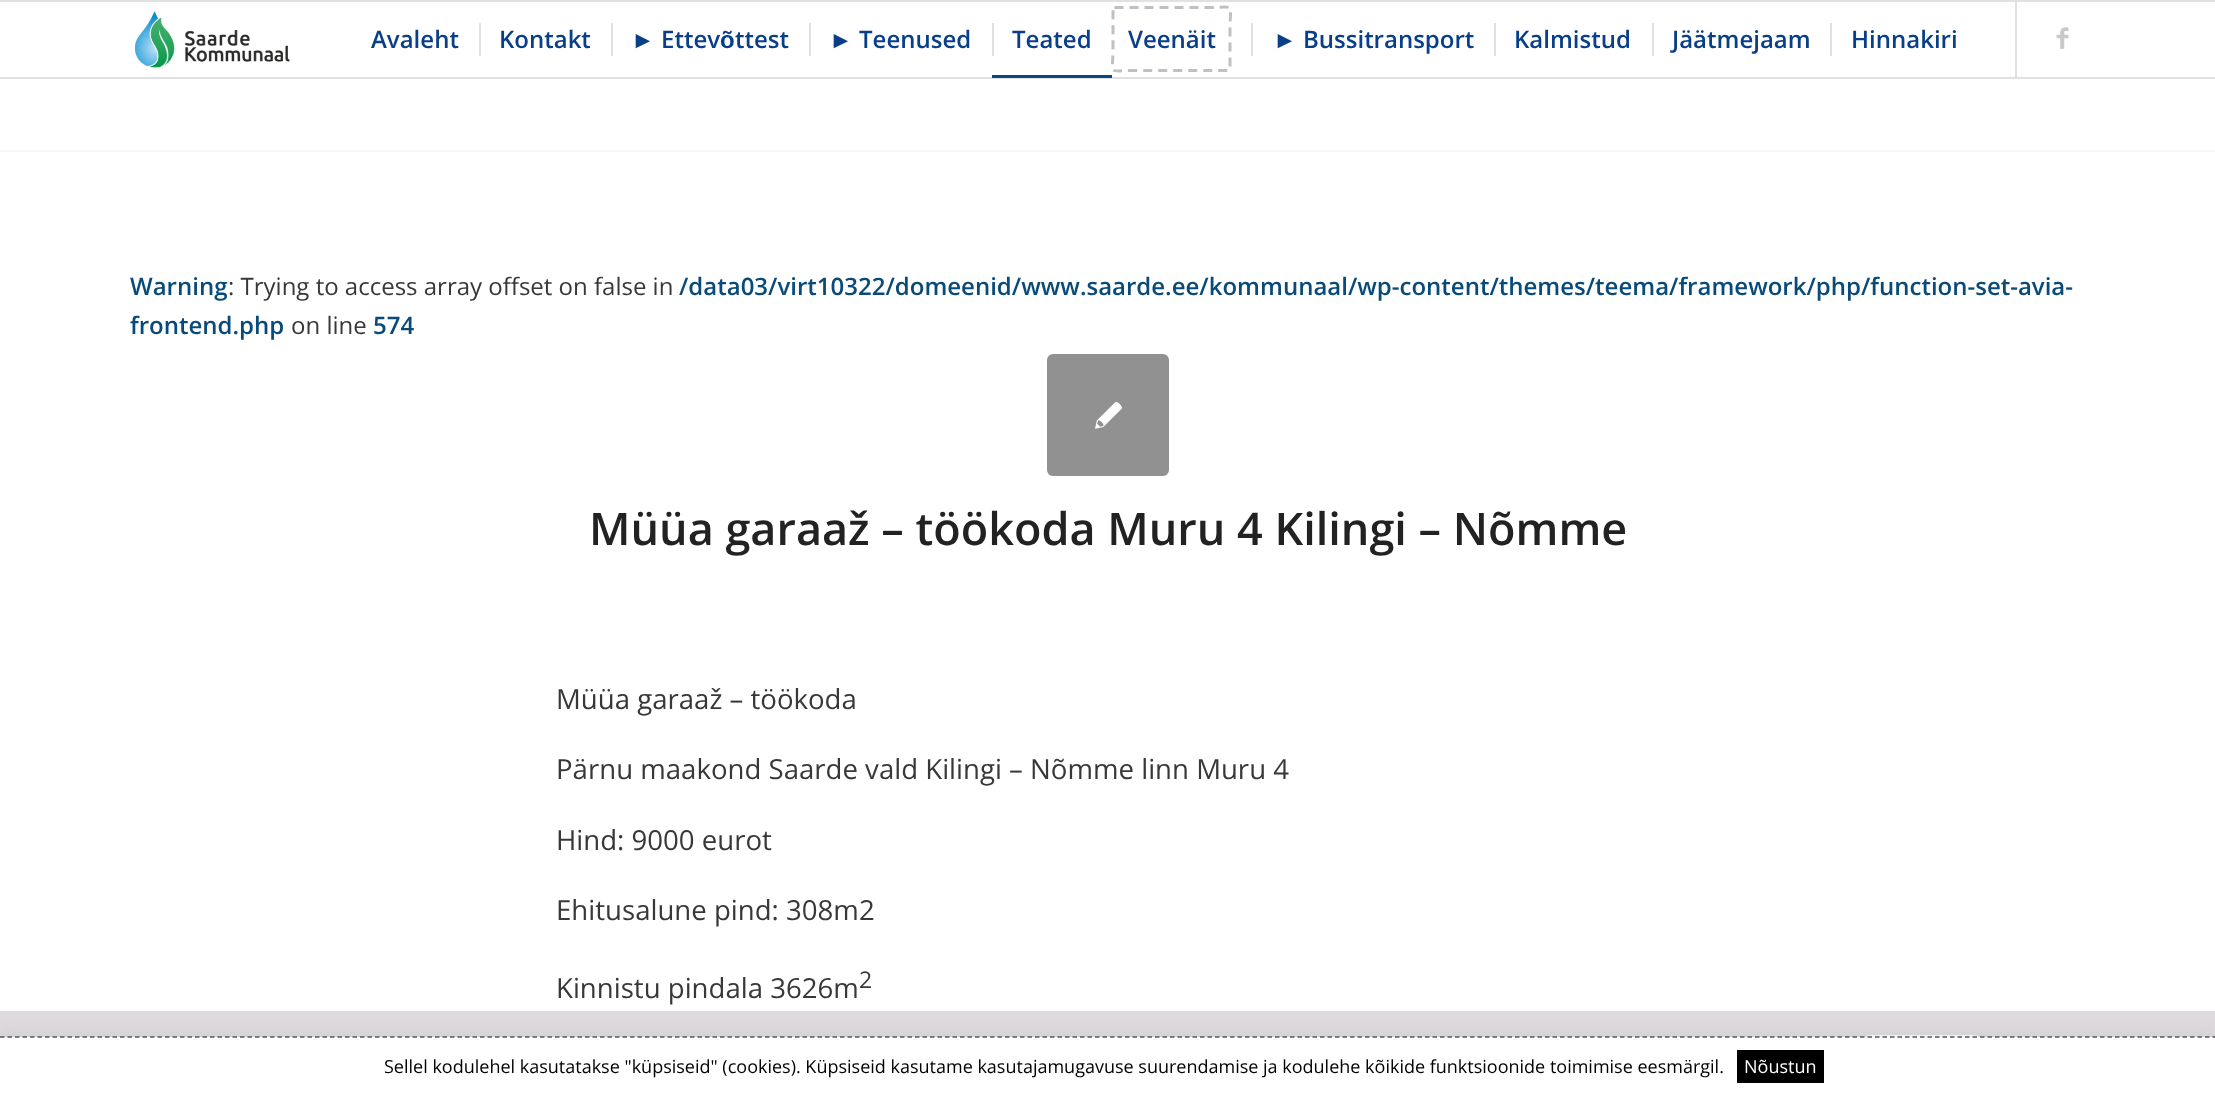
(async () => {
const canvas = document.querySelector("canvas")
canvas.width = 2215
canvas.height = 1094
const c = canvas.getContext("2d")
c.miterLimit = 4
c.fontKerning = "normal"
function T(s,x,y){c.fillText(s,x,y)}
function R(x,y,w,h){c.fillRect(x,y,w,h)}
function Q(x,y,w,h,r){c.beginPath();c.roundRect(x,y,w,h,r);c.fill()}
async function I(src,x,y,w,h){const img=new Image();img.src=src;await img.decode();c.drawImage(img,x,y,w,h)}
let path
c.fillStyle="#fff"
R(0,0,2215,1094)
c.fillStyle="#e1e1e1"
R(0,0,2215,2)
R(0,77,2215,2)
await I("1.png",134,11,156,57)
R(2015,2,2,75)
c.font="600 24px Open Sans"
c.fillStyle="#093e89"
T("Avaleht",371,48)
T("Kontakt",499,48)
c.fillStyle="#e1e1e1"
R(479,23,2,33)
c.font="bold 24px Liberation Sans"
c.fillStyle="#093e89"
T("►",631,48)
c.fillStyle="#e1e1e1"
R(611,23,2,33)
c.font="600 24px Open Sans"
c.fillStyle="#093e89"
T("Ettev",661,48)
c.font="bold 24px Liberation Sans"
T("õ",720,48)
c.font="600 24px Open Sans"
T("ttest",735,48)
c.font="bold 24px Liberation Sans"
T("►",829,48)
c.fillStyle="#e1e1e1"
R(809,23,2,33)
c.font="600 24px Open Sans"
c.fillStyle="#093e89"
T("Teenused",859,48)
T("Teated",1012,48)
c.fillStyle="#e1e1e1"
R(992,23,2,33)
c.fillStyle="#084a79"
R(992,75,120,3)
path = new Path2D("M1114.5 7.5h95c26.5 0 20.5-5.5 20.5 21.5v40.5l-1.5 1h-95c-26.5 0-20.5 5.5-20.5-21.5v-40.5z")
c.strokeStyle="#c0c0c0"
c.lineWidth=3
c.setLineDash([9,6])
c.stroke(path)
c.fillStyle="#093e89"
T("Veenäit",1128,48)
c.font="bold 24px Liberation Sans"
T("►",1273,48)
c.fillStyle="#e1e1e1"
R(1251,23,2,33)
c.font="600 24px Open Sans"
c.fillStyle="#093e89"
T("Bussitransport",1303,48)
T("Kalmistud",1514,48)
c.fillStyle="#e1e1e1"
R(1494,23,2,33)
c.fillStyle="#093e89"
T("Jäätmejaam",1672,48)
c.fillStyle="#e1e1e1"
R(1652,23,2,33)
c.fillStyle="#093e89"
T("Hinnakiri",1851,48)
c.fillStyle="#e1e1e1"
R(1830,23,2,33)
await I("2.png",2056,27,13,22)
c.fillStyle="#f8f8f8"
R(0,150,2215,2)
c.fillStyle="#084a79"
T("Warning",130,295)
c.font="24px Open Sans"
c.fillStyle="#383838"
T(": Trying to access array offset on false in",228,295)
c.font="600 24px Open Sans"
c.fillStyle="#084a79"
T("/data03/virt10322/domeenid/www.saarde.ee/kommunaal/wp-content/themes/teema/framework/php/function-set-avia-",679,295)
T("frontend.php",130,334)
c.font="24px Open Sans"
c.fillStyle="#383838"
T("on line",291,334)
c.font="600 24px Open Sans"
c.fillStyle="#084a79"
T("574",373,334)
c.fillStyle="#919191"
Q(1047,354,122,122,6)
await I("3.png",1095,402,27,27)
c.font="600 45px Open Sans"
c.fillStyle="#222"
T("Müüa garaaž – töökoda Muru 4 Kilingi – Nõmme",589,545)
c.font="27.6px Open Sans"
c.fillStyle="#383838"
T("Müüa garaaž – töökoda",556,709)
T("Pärnu maakond Saarde vald Kilingi – Nõmme linn Muru 4",556,779)
T("Hind: 9000 eurot",556,850)
T("Ehitusalune pind: 308m2",556,920)
T("Kinnistu pindala 3626m",556,998)
c.font="23px Open Sans"
T("2",859,988)
c.fillStyle="#dedade"
R(0,1011,2215,26)
c.fillStyle="#fff"
Q(1862,1035,120,38,8)
c.fillStyle="#acabab4d"
c.filter="blur(7.5px)"
c.beginPath()
c.rect(0,1035,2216,59)
c.fill()
c.filter="none"
c.fillStyle="#fff"
R(0,1037,2215,57)
path = new Path2D("M0 1037h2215.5")
c.strokeStyle="#555"
c.lineWidth=1.5
c.setLineDash([4.5,3])
c.stroke(path)
c.font="18px Open Sans"
c.fillStyle="#000"
T("Sellel kodulehel kasutatakse \"küpsiseid\" (cookies). Küpsiseid kasutame kasutajamugavuse suurendamise ja kodulehe kõikide funktsioonide toimimise eesmärgil.",384,1073)
R(1737,1050,87,33)
c.fillStyle="#fff"
T("Nõustun",1744,1073)
})()
